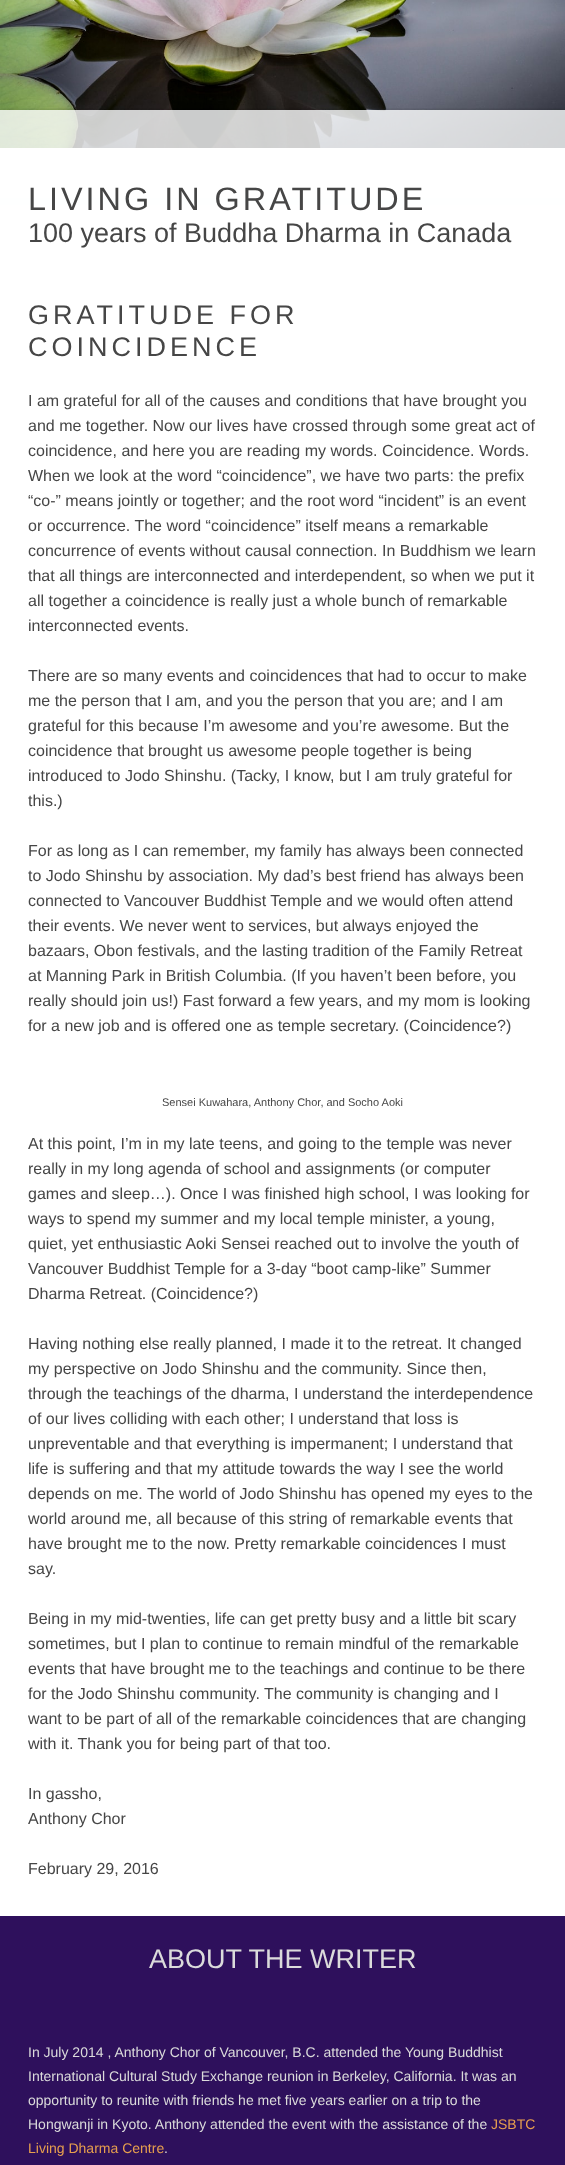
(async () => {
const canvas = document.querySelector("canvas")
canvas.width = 565
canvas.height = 2165
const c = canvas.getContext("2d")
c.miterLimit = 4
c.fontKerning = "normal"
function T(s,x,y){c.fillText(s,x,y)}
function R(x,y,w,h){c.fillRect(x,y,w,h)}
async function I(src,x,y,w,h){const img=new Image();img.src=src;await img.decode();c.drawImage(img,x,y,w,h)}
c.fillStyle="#fff"
R(0,0,565,2165)
await I("1.png",0,0,565,148)
c.save()
c.beginPath()
c.rect(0,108,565,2)
c.clip()
c.fillStyle="#0000004d"
c.filter="blur(3px)"
c.beginPath()
c.rect(0,112,565,88)
c.fill()
c.filter="none"
c.restore()
c.fillStyle="#feffffcc"
R(0,110,565,38)
c.fillStyle="#feffff"
R(0,198,565,7)
c.letterSpacing="3px"
c.font="32.4px Liberation Sans"
c.fillStyle="#464646"
T("LIVING IN GRATITUDE",28,210)
c.letterSpacing="0px"
c.font="27px Liberation Sans"
T("100 years of Buddha Dharma in Canada",28,242)
c.letterSpacing="4px"
T("GRATITUDE FOR",28,324)
T("COINCIDENCE",28,356)
c.letterSpacing="0px"
c.font="16px Liberation Sans"
T("I am grateful for all of the causes and conditions that have brought you",28,406)
T("and me together. Now our lives have crossed through some great act of",28,431)
T("coincidence, and here you are reading my words. Coincidence. Words.",28,456)
T("When we look at the word “coincidence”, we have two parts: the prefix",28,481)
T("“co-” means jointly or together; and the root word “incident” is an event",28,506)
T("or occurrence. The word “coincidence” itself means a remarkable",28,531)
T("concurrence of events without causal connection. In Buddhism we learn",28,556)
T("that all things are interconnected and interdependent, so when we put it",28,581)
T("all together a coincidence is really just a whole bunch of remarkable",28,606)
T("interconnected events.",28,631)
T("There are so many events and coincidences that had to occur to make",28,681)
T("me the person that I am, and you the person that you are; and I am",28,706)
T("grateful for this because I’m awesome and you’re awesome. But the",28,731)
T("coincidence that brought us awesome people together is being",28,756)
T("introduced to Jodo Shinshu. (Tacky, I know, but I am truly grateful for",28,781)
T("this.)",28,806)
T("For as long as I can remember, my family has always been connected",28,856)
T("to Jodo Shinshu by association. My dad’s best friend has always been",28,881)
T("connected to Vancouver Buddhist Temple and we would often attend",28,906)
T("their events. We never went to services, but always enjoyed the",28,931)
T("bazaars, Obon festivals, and the lasting tradition of the Family Retreat",28,956)
T("at Manning Park in British Columbia. (If you haven’t been before, you",28,981)
T("really should join us!) Fast forward a few years, and my mom is looking",28,1006)
T("for a new job and is offered one as temple secretary. (Coincidence?)",28,1031)
c.font="11px Liberation Sans"
T("Sensei Kuwahara, Anthony Chor, and Socho Aoki",162,1106)
c.font="16px Liberation Sans"
T("At this point, I’m in my late teens, and going to the temple was never",28,1149)
T("really in my long agenda of school and assignments (or computer",28,1174)
T("games and sleep…). Once I was finished high school, I was looking for",28,1199)
T("ways to spend my summer and my local temple minister, a young,",28,1224)
T("quiet, yet enthusiastic Aoki Sensei reached out to involve the youth of",28,1249)
T("Vancouver Buddhist Temple for a 3-day “boot camp-like” Summer",28,1274)
T("Dharma Retreat. (Coincidence?)",28,1299)
T("Having nothing else really planned, I made it to the retreat. It changed",28,1349)
T("my perspective on Jodo Shinshu and the community. Since then,",28,1374)
T("through the teachings of the dharma, I understand the interdependence",28,1399)
T("of our lives colliding with each other; I understand that loss is",28,1424)
T("unpreventable and that everything is impermanent; I understand that",28,1449)
T("life is suffering and that my attitude towards the way I see the world",28,1474)
T("depends on me. The world of Jodo Shinshu has opened my eyes to the",28,1499)
T("world around me, all because of this string of remarkable events that",28,1524)
T("have brought me to the now. Pretty remarkable coincidences I must",28,1549)
T("say.",28,1574)
T("Being in my mid-twenties, life can get pretty busy and a little bit scary",28,1624)
T("sometimes, but I plan to continue to remain mindful of the remarkable",28,1649)
T("events that have brought me to the teachings and continue to be there",28,1674)
T("for the Jodo Shinshu community. The community is changing and I",28,1699)
T("want to be part of all of the remarkable coincidences that are changing",28,1724)
T("with it. Thank you for being part of that too.",28,1749)
T("In gassho,",28,1799)
T("Anthony Chor",28,1824)
T("February 29, 2016",28,1874)
c.fillStyle="#2e105c"
R(0,1916,565,249)
c.font="27px Liberation Sans"
c.fillStyle="#dbdbdb"
T("ABOUT THE WRITER",149,1968)
c.font="14px Liberation Sans"
T("In July 2014 , Anthony Chor of Vancouver, B.C. attended the Young Buddhist",28,2057)
T("International Cultural Study Exchange reunion in Berkeley, California. It was an",28,2081)
T("opportunity to reunite with friends he met five years earlier on a trip to the",28,2105)
T("Hongwanji in Kyoto. Anthony attended the event with the assistance of the",28,2129)
c.fillStyle="#e79f4e"
T("JSBTC",491,2129)
T("Living Dharma Centre",28,2153)
c.fillStyle="#dbdbdb"
T(".",164,2153)
})()
